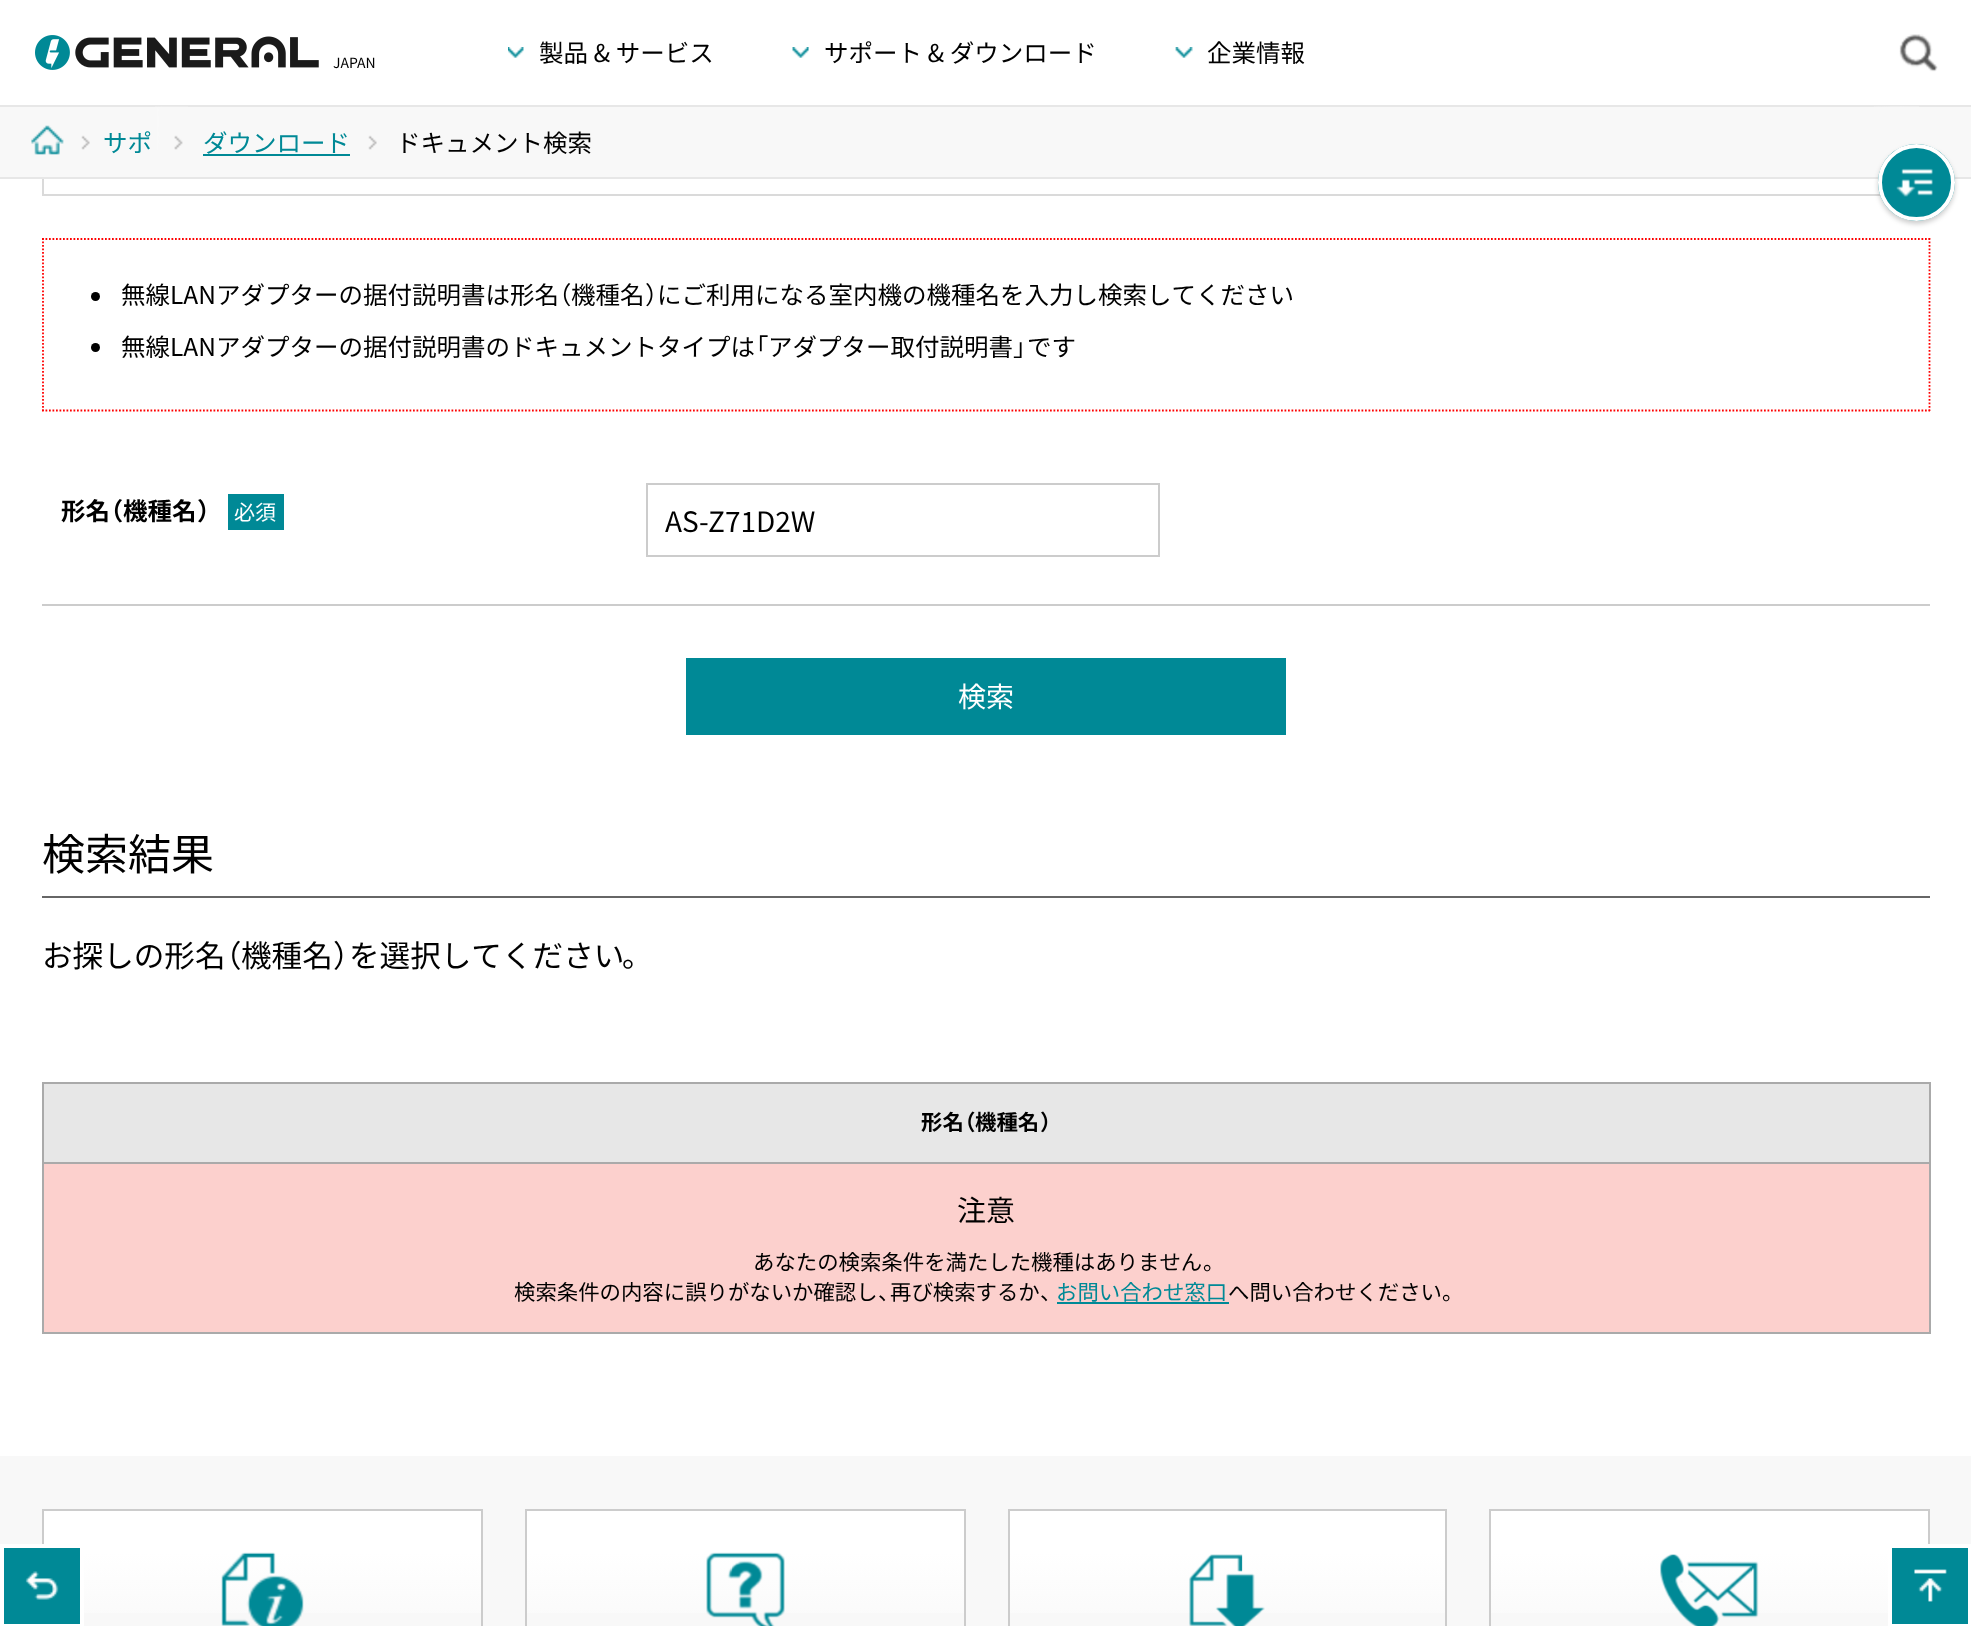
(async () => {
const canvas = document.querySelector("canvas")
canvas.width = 1971
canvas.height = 1626
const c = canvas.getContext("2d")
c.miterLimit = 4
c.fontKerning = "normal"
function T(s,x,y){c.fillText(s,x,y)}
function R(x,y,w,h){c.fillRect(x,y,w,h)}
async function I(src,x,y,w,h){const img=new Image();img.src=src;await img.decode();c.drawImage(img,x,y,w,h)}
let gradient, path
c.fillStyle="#fff"
R(0,0,1971,1626)
c.strokeStyle="#dadada"
c.lineWidth=2
c.strokeRect(43,-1,1886,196)
R(42,0,1888,105)
c.fillStyle="#e7e7e7"
R(0,105,1971,2)
await I("1.png",35,35,284,35)
c.font="14px Noto Sans JP"
c.fillStyle="#000"
T("JAPAN",333,68)
await I("2.png",508,47,16,11)
c.font="24.5px Noto Sans JP"
T("製品 & サービス",539,62)
await I("3.png",792,47,17,11)
T("サポート & ダウンロード",824,62)
await I("4.png",1175,47,18,11)
T("企業情報",1207,62)
await I("5.png",1899,34,39,38)
c.fillStyle="#f8f8f8"
R(0,107,1971,70)
c.fillStyle="#e7e7e7"
R(0,177,1971,2)
await I("6.png",1874,106,45,1)
await I("7.png",81,135,9,15)
await I("8.png",31,125,33,30)
c.fillStyle="#008996"
T("サポ",103,152)
await I("9.png",155,106,33,44)
await I("10.png",368,135,9,15)
T("ダウンロード",203,152)
R(203,154,147,2)
c.fillStyle="#000"
T("ドキュメント検索",396,152)
c.fillStyle="#00000033"
c.filter="blur(2.5px)"
c.beginPath()
c.roundRect(1878,147,77,77,38.5)
c.fill()
c.filter="none"
c.fillStyle="#008996"
c.beginPath()
c.arc(1916.5,182.5,38.5,0,7)
c.fill()
await I("11.png",1896,168,37,29)
c.beginPath()
c.arc(1916.5,182.5,36.5,0,7)
c.strokeStyle="#fff"
c.lineWidth=4
c.stroke()
path = new Path2D("M42 239h1888")
c.strokeStyle="#f00"
c.lineWidth=1.8
c.setLineDash([1.75,1.75])
c.stroke(path)
path = new Path2D("M1929.5 238v173")
c.stroke(path)
path = new Path2D("M42 410.5h1888")
c.stroke(path)
path = new Path2D("M43 238v173")
c.stroke(path)
c.fillStyle="#000"
c.beginPath()
c.arc(95.5,296.5,4.5,0,7)
c.fill()
T("無線LANアダプターの据付説明書は形名",121,304)
c.font="24.5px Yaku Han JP"
T("（",559,304)
c.font="24.5px Noto Sans JP"
T("機種名",571,304)
c.font="24.5px Yaku Han JP"
T("）",645,304)
c.font="24.5px Noto Sans JP"
T("にご利用になる室内機の機種名を入力し検索してください",657,304)
c.beginPath()
c.arc(95.5,347.5,4.5,0,7)
c.fill()
T("無線LANアダプターの据付説明書のドキュメントタイプは",121,356)
c.font="24.5px Yaku Han JP"
T("「",755,356)
c.font="24.5px Noto Sans JP"
T("アダプター取付説明書",768,356)
c.font="24.5px Yaku Han JP"
T("」",1013,356)
c.font="24.5px Noto Sans JP"
T("です",1027,356)
c.fillStyle="#ccc"
R(42,604,1888,2)
c.font="bold 24.5px Noto Sans JP"
c.fillStyle="#000"
T("形名",61,520)
c.font="bold 24.5px Yaku Han JP"
T("（",110,520)
c.font="bold 24.5px Noto Sans JP"
T("機種名",123,520)
c.font="bold 24.5px Yaku Han JP"
T("）",197,520)
c.fillStyle="#008996"
R(228,494,56,36)
c.font="21px Noto Sans JP"
c.fillStyle="#fff"
T("必須",234,520)
c.strokeStyle="#ccc"
c.lineWidth=2
c.setLineDash([])
c.strokeRect(647,484,512,72)
c.font="28px Noto Sans JP"
c.fillStyle="#000"
T("AS-Z71D2W",665,532)
c.fillStyle="#008996"
R(686,658,600,77)
c.fillStyle="#fff"
T("検索",958,707)
c.fillStyle="#666"
R(42,896,1888,2)
c.font="43px Noto Sans JP"
c.fillStyle="#000"
T("検索結果",42,870)
c.font="30.6px Noto Sans JP"
T("お探しの形名",42,967)
c.font="30.6px Yaku Han JP"
T("（",226,967)
c.font="30.6px Noto Sans JP"
T("機種名",241,967)
c.font="30.6px Yaku Han JP"
T("）",333,967)
c.font="30.6px Noto Sans JP"
T("を選択してください",349,967)
c.font="30.6px Yaku Han JP"
T("。",622,967)
c.fillStyle="#e7e7e7"
R(44,1084,1885,78)
c.fillStyle="#aaa"
R(42,1082,1888,2)
R(42,1162,1888,2)
R(1929,1162,2,172)
R(1929,1082,2,82)
R(42,1332,1888,2)
R(42,1162,2,172)
R(42,1082,2,82)
c.font="bold 21.4px Noto Sans JP"
c.fillStyle="#000"
T("形名",921,1130)
c.font="bold 21.4px Yaku Han JP"
T("（",964,1130)
c.font="bold 21.4px Noto Sans JP"
T("機種名",975,1130)
c.font="bold 21.4px Yaku Han JP"
T("）",1040,1130)
c.fillStyle="#fcd0cd"
R(44,1164,1885,168)
c.font="29px Noto Sans JP"
c.fillStyle="#000"
T("注意",957,1221)
c.font="21.4px Noto Sans JP"
T("あなたの検索条件を満たした機種はありません",753,1270)
c.font="21.4px Yaku Han JP"
T("。",1203,1270)
c.font="21.4px Noto Sans JP"
T("検索条件の内容に誤りがないか確認し",514,1300)
c.font="21.4px Yaku Han JP"
T("、",878,1300)
c.font="21.4px Noto Sans JP"
T("再び検索するか",890,1300)
c.font="21.4px Yaku Han JP"
T("、",1040,1300)
c.font="21.4px Noto Sans JP"
c.fillStyle="#008996"
T("お問い合わせ窓口",1056,1300)
R(1057,1302,172,2)
c.fillStyle="#000"
T("へ問い合わせください",1228,1300)
c.font="21.4px Yaku Han JP"
T("。",1442,1300)
c.fillStyle="#f8f8f8"
R(0,1456,1971,170)
gradient = c.createLinearGradient(263,1509,263,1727)
gradient.addColorStop(.2,"#fff")
gradient.addColorStop(1,"#f2f2f2")
c.fillStyle = gradient
R(44,1511,437,102)
c.strokeRect(43,1510,439,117)
await I("12.png",221,1552,83,74)
gradient = c.createLinearGradient(746,1509,746,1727)
gradient.addColorStop(.2,"#fff")
gradient.addColorStop(1,"#f2f2f2")
c.fillStyle = gradient
R(527,1511,437,102)
c.strokeRect(526,1510,439,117)
await I("13.png",706,1552,79,74)
gradient = c.createLinearGradient(1228,1509,1228,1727)
gradient.addColorStop(.2,"#fff")
gradient.addColorStop(1,"#f2f2f2")
c.fillStyle = gradient
R(1010,1511,435,102)
c.strokeRect(1009,1510,437,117)
await I("14.png",1189,1554,76,72)
gradient = c.createLinearGradient(1710,1509,1710,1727)
gradient.addColorStop(.2,"#fff")
gradient.addColorStop(1,"#f2f2f2")
c.fillStyle = gradient
R(1491,1511,437,102)
c.strokeRect(1490,1510,439,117)
await I("15.png",1660,1554,99,72)
c.fillStyle="#008996"
R(4,1548,76,76)
await I("16.png",25,1571,34,29)
c.strokeStyle="#fff"
c.lineWidth=4
c.strokeRect(2,1546,80,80)
R(1892,1548,76,76)
await I("17.png",1914,1569,33,33)
c.strokeRect(1890,1546,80,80)
})()
